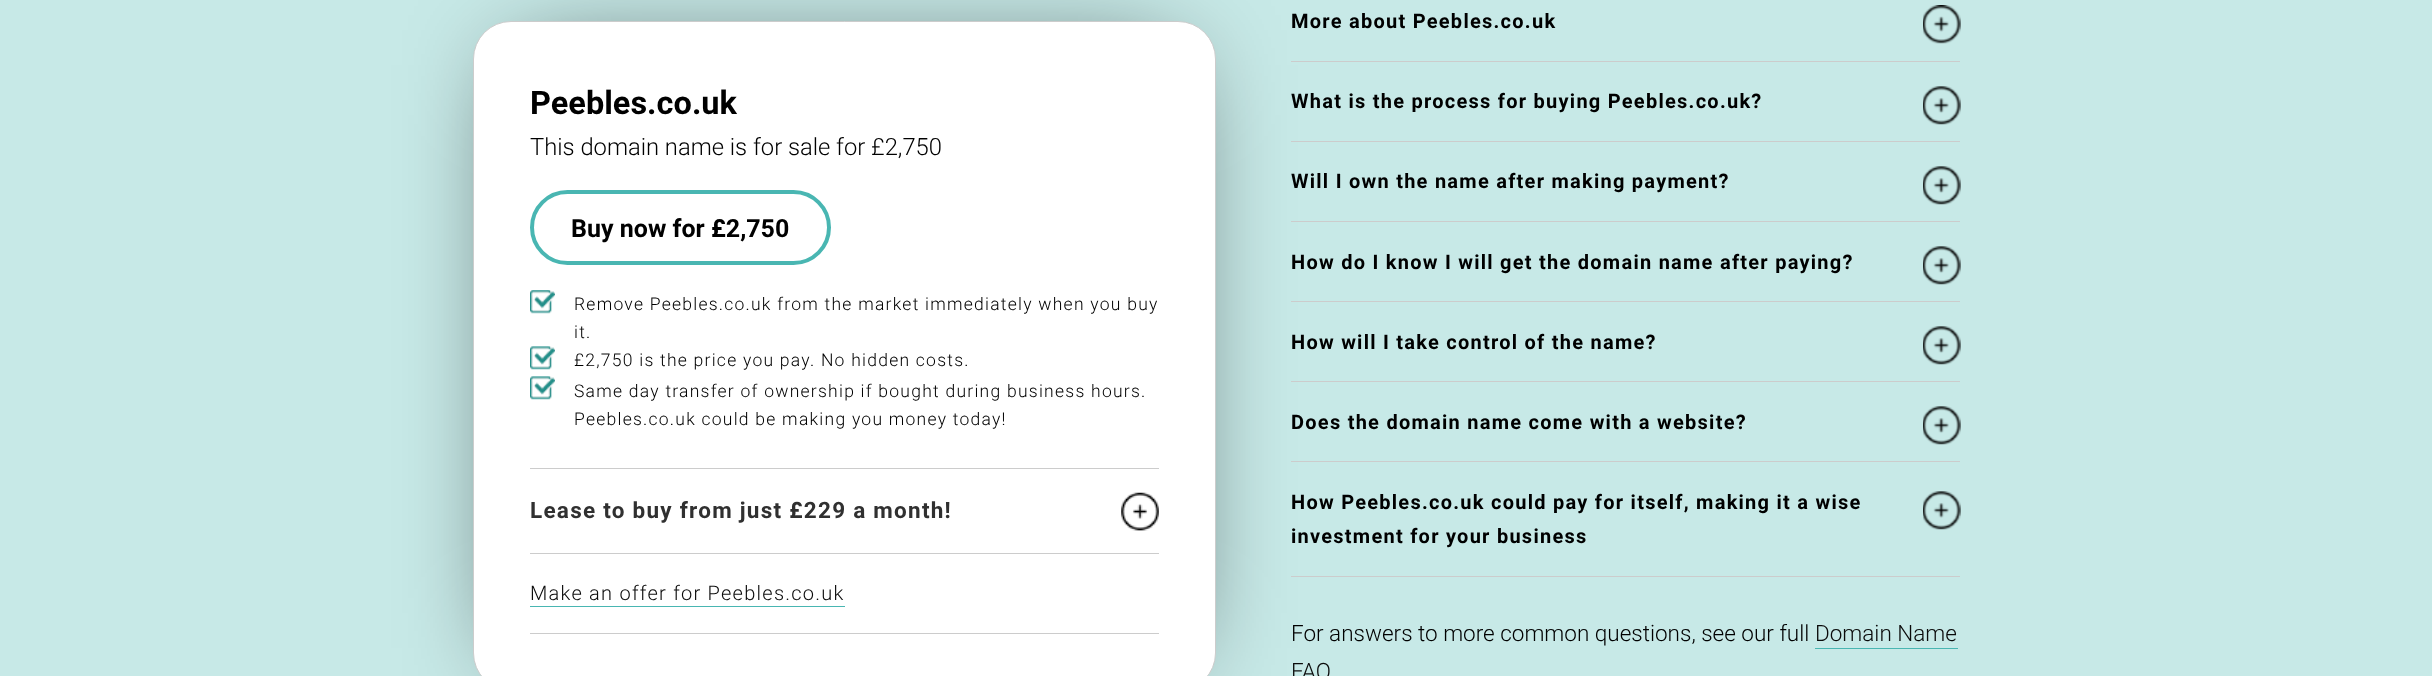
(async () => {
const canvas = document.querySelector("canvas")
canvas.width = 2432
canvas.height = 676
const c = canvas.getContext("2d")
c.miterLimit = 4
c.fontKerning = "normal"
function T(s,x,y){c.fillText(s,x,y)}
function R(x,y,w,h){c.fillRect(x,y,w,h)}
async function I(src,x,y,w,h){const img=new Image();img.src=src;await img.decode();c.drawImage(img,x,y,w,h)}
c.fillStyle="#c7e9e7"
R(0,0,2432,676)
c.fillStyle="#000000bf"
c.filter="blur(53px)"
c.beginPath()
c.rect(516,65,657,583)
c.fill()
c.filter="none"
c.fillStyle="#fff"
c.beginPath()
c.roundRect(473.5,21.5,742,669,37.5)
c.fill()
c.strokeStyle="#ccc"
c.stroke()
c.font="bold 32.5px Roboto"
c.fillStyle="#000"
T("Peebles.co.uk",530,114)
c.font="300 23.75px Roboto"
T("This domain name is for sale for £2,750",530,155)
c.fillStyle="#ccc"
R(530,468,629,1)
c.beginPath()
c.roundRect(532,192,297,71,35.5)
c.strokeStyle="#49b6b2"
c.lineWidth=4
c.stroke()
c.font="bold 25px Roboto"
c.fillStyle="#000"
T("Buy now for £2,750",571,237)
await I("1.png",530,290,25,24)
c.letterSpacing="1.25px"
c.font="300 17.5px Roboto"
T("Remove Peebles.co.uk from the market immediately when you buy",574,310)
T("it.",574,338)
await I("2.png",530,346,25,24)
T("£2,750 is the price you pay. No hidden costs.",574,366)
await I("2.png",530,376,25,24)
T("Same day transfer of ownership if bought during business hours.",574,397)
T("Peebles.co.uk could be making you money today!",574,425)
c.fillStyle="#ccc"
R(530,553,629,1)
c.font="bold 22.5px Roboto"
c.fillStyle="#303030"
T("Lease to buy from just £229 a month!",530,518)
await I("3.png",1121,492,38,39)
c.fillStyle="#ccc"
R(530,633,629,1)
c.font="300 20px Roboto"
c.fillStyle="#0a0a0a"
T("Make an offer for Peebles.co.uk",530,600)
c.fillStyle="#49b6b2"
R(530,606,315,1)
c.fillStyle="#ccc"
R(1291,61,669,1)
c.font="bold 20px Roboto"
c.fillStyle="#000"
T("More about Peebles.co.uk",1291,28)
await I("4.png",1923,5,38,39)
c.fillStyle="#ccc"
R(1291,141,669,1)
c.fillStyle="#000"
T("What is the process for buying Peebles.co.uk?",1291,108)
await I("5.png",1923,86,38,39)
c.fillStyle="#ccc"
R(1291,221,669,1)
c.fillStyle="#000"
T("Will I own the name after making payment?",1291,188)
await I("5.png",1923,166,38,39)
c.fillStyle="#ccc"
R(1291,301,669,1)
c.fillStyle="#000"
T("How do I know I will get the domain name after paying?",1291,269)
await I("5.png",1923,246,38,39)
c.fillStyle="#ccc"
R(1291,381,669,1)
c.fillStyle="#000"
T("How will I take control of the name?",1291,349)
await I("5.png",1923,326,38,39)
c.fillStyle="#ccc"
R(1291,461,669,1)
c.fillStyle="#000"
T("Does the domain name come with a website?",1291,429)
await I("5.png",1923,406,38,39)
c.fillStyle="#ccc"
R(1291,576,669,1)
c.fillStyle="#000"
T("How Peebles.co.uk could pay for itself, making it a wise",1291,509)
await I("6.png",1923,491,38,39)
T("investment for your business",1291,543)
c.letterSpacing="0px"
c.font="300 22.5px Roboto"
T("For answers to more common questions, see our full",1291,641)
c.fillStyle="#0a0a0a"
T("Domain Name",1815,641)
c.fillStyle="#49b6b2"
R(1815,648,143,1)
c.fillStyle="#0a0a0a"
T("FAQ",1291,679)
})()
